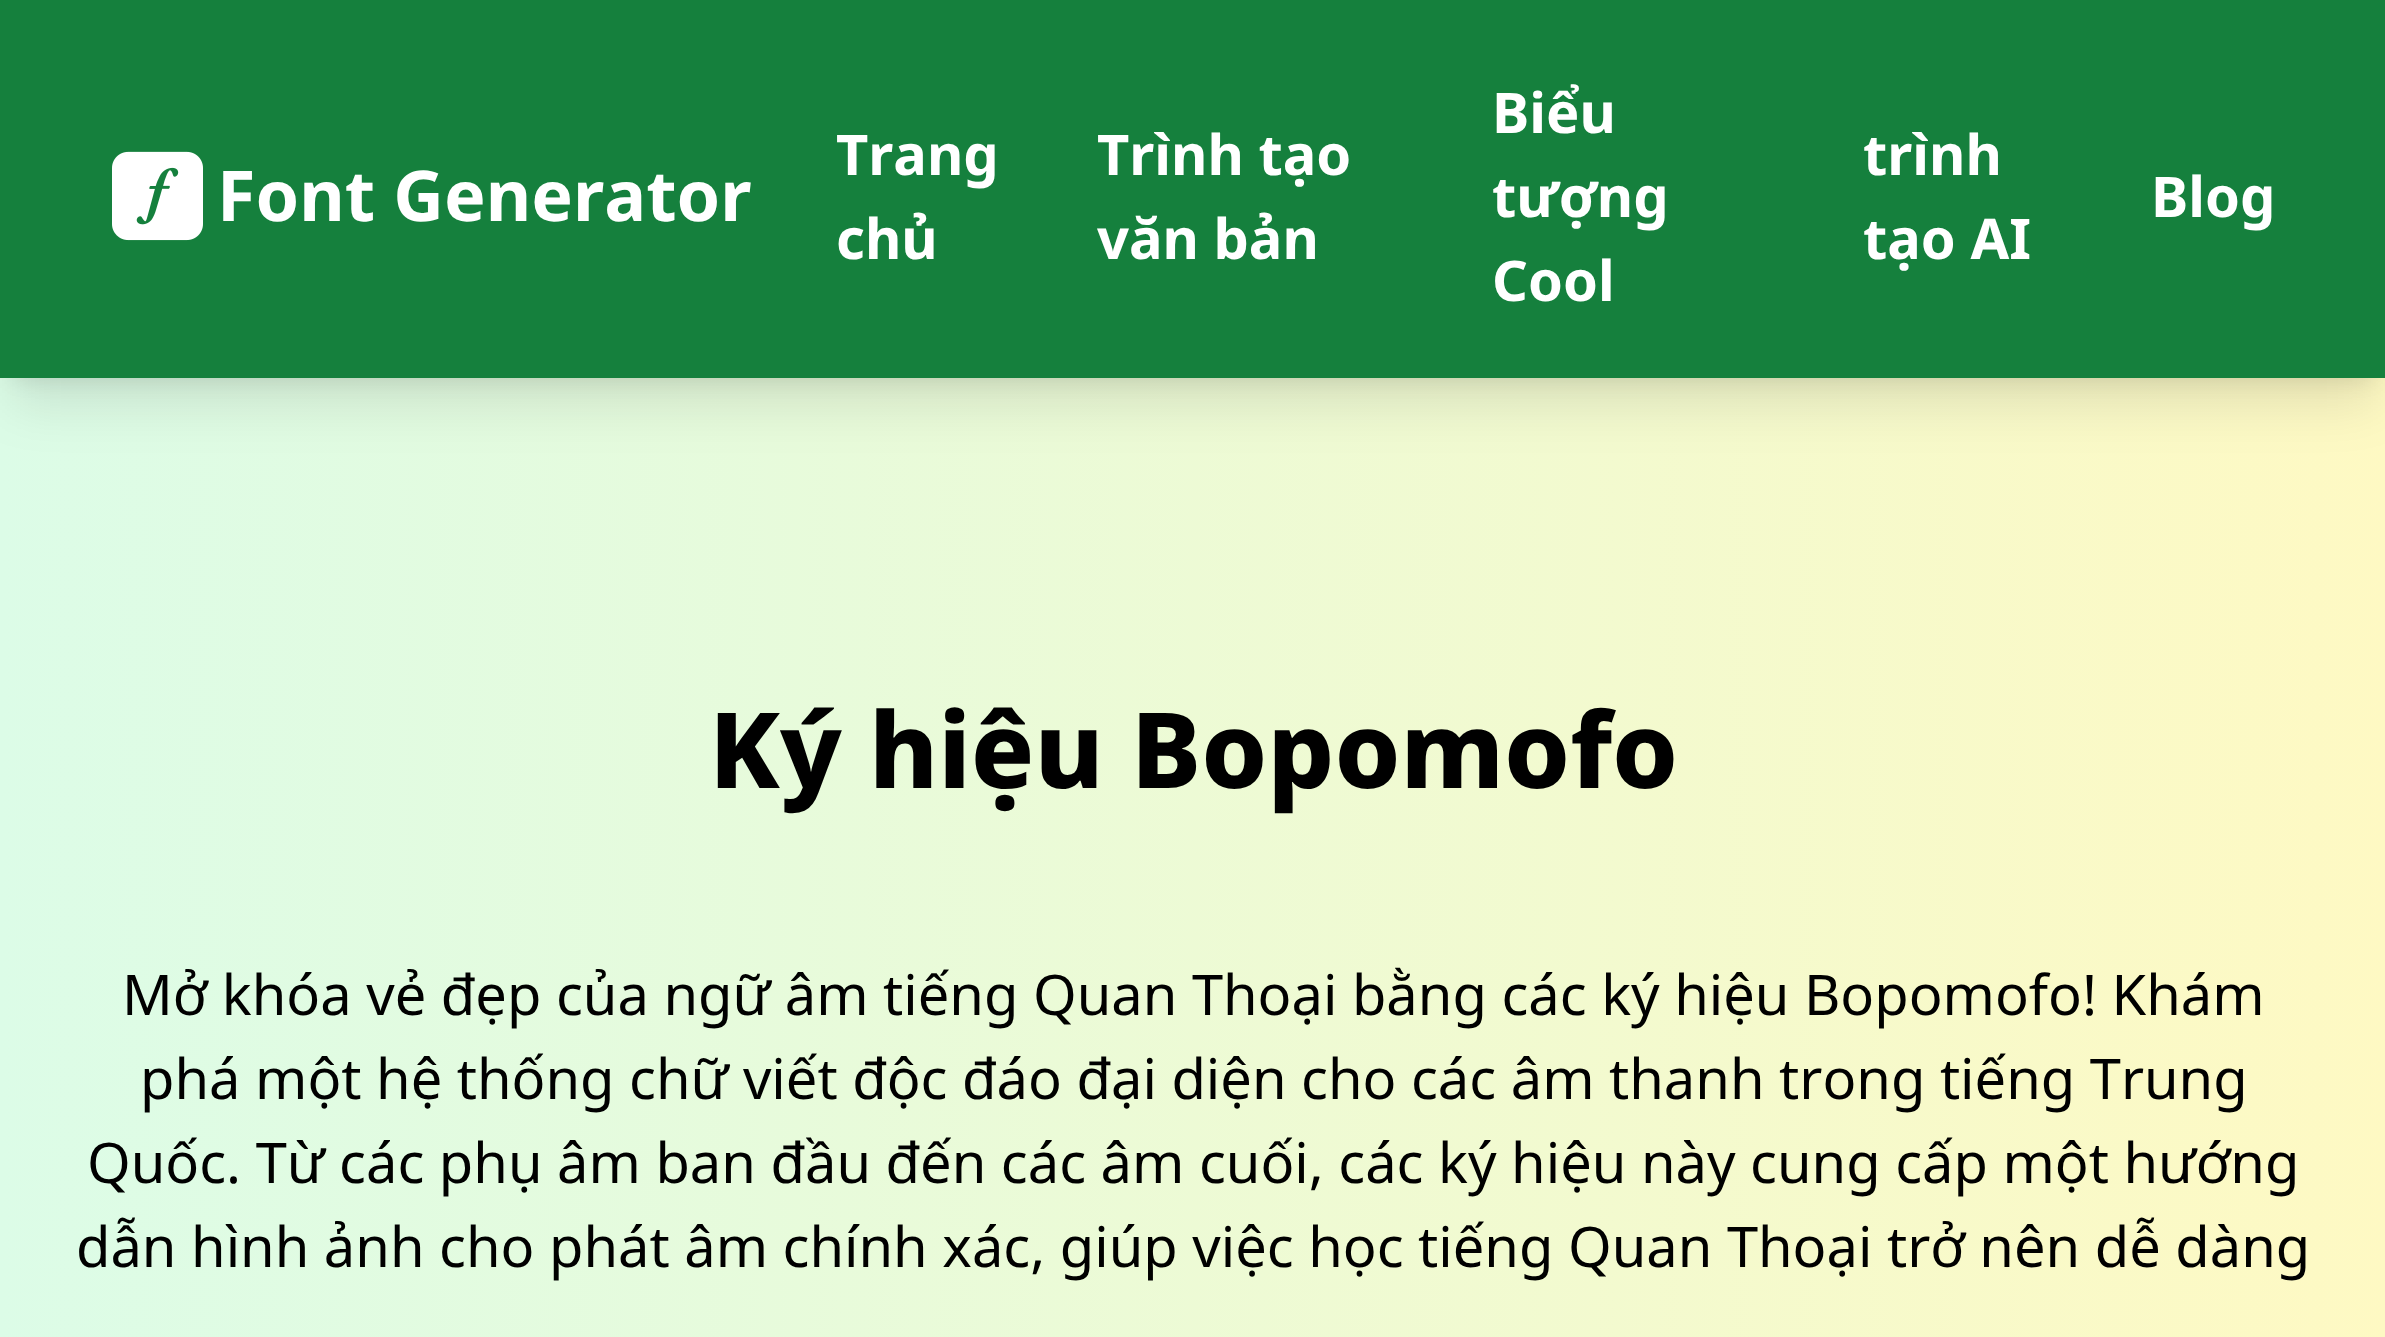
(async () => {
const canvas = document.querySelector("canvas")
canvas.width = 2385
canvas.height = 1337
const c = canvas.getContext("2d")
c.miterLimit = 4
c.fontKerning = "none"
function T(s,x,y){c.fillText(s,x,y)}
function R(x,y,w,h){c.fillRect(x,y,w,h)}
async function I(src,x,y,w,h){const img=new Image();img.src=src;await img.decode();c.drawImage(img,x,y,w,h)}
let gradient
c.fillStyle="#fff"
R(0,0,2385,1337)
gradient = c.createLinearGradient(0,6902,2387,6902)
gradient.addColorStop(0,"#dcfce7")
gradient.addColorStop(1,"#fef9c3")
c.fillStyle = gradient
R(0,378,2385,959)
c.fillStyle="#0000001a"
c.filter="blur(10.5px)"
c.beginPath()
c.rect(14,28,2359,350)
c.fill()
c.filter="none"
c.filter="blur(26px)"
c.beginPath()
c.rect(11,46,2366,357)
c.fill()
c.filter="none"
c.fillStyle="#15803d"
R(0,0,2385,378)
await I("1.png",112,151,91,90)
c.font="bold 70px Noto Sans"
c.fillStyle="#fff"
T("Font Generator",217,221)
c.font="bold 56px Noto Sans"
T("Trang",836,175)
T("chủ",836,259)
T("Trình tạo",1097,175)
T("văn bản",1097,259)
T("Biểu",1492,133)
T("tượng",1492,217)
T("Cool",1492,301)
T("trình",1863,175)
T("tạo AI",1863,259)
T("Blog",2151,217)
c.font="800 105px Noto Sans"
c.fillStyle="#000"
T("Ký hiệu Bopomofo",709,788)
c.font="56px Noto Sans"
T("Mở khóa vẻ đẹp của ngữ âm tiếng Quan Thoại bằng các ký hiệu Bopomofo! Khám",122,1015)
T("phá một hệ thống chữ viết độc đáo đại diện cho các âm thanh trong tiếng Trung",140,1099)
T("Quốc. Từ các phụ âm ban đầu đến các âm cuối, các ký hiệu này cung cấp một hướng",87,1183)
T("dẫn hình ảnh cho phát âm chính xác, giúp việc học tiếng Quan Thoại trở nên dễ dàng",76,1267)
})()
